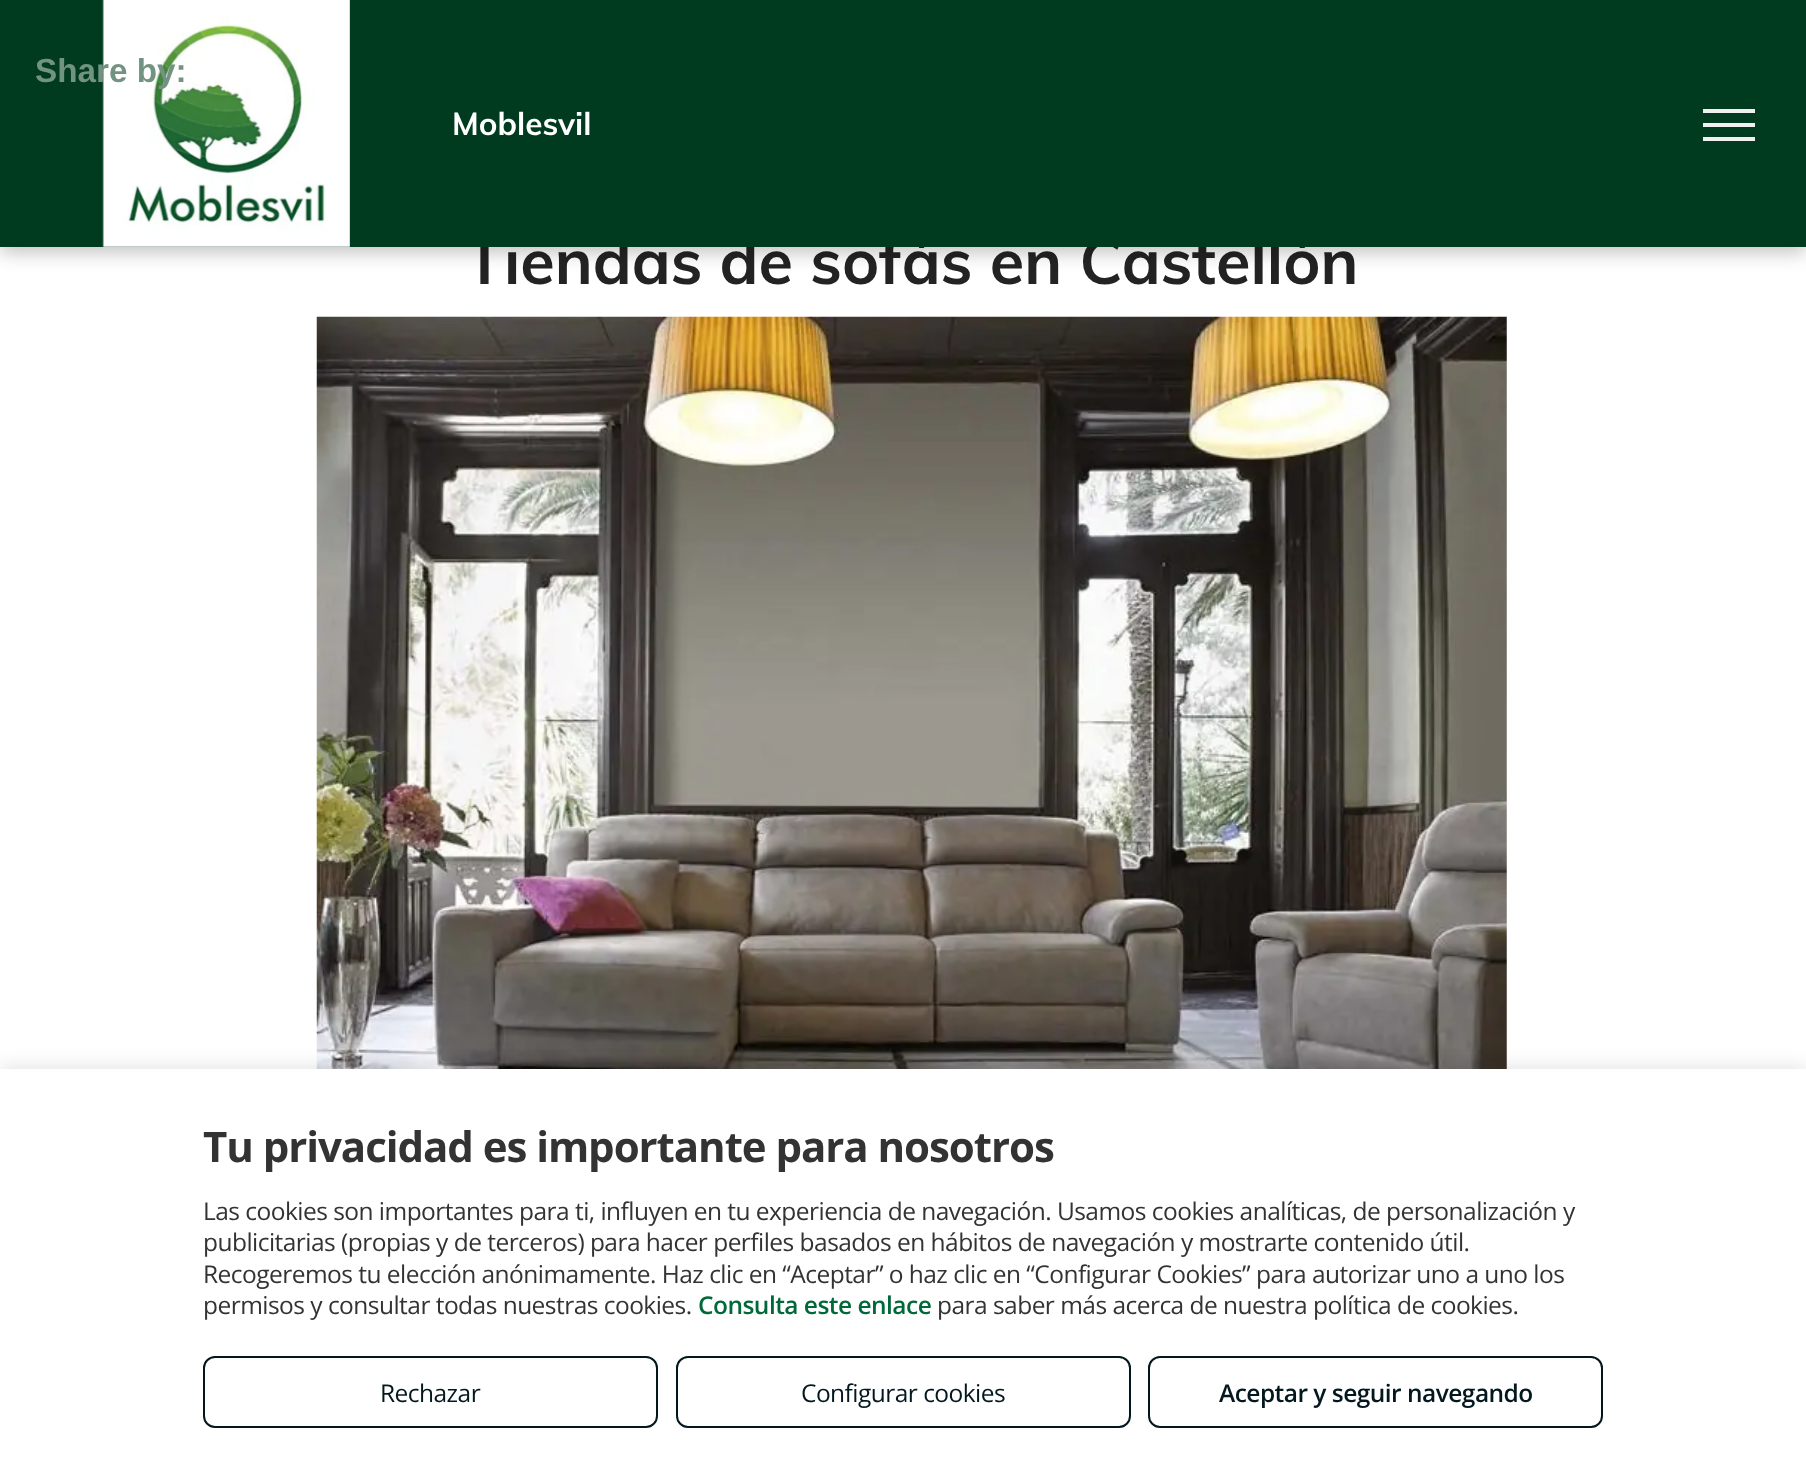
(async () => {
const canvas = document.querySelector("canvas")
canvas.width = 1806
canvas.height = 1462
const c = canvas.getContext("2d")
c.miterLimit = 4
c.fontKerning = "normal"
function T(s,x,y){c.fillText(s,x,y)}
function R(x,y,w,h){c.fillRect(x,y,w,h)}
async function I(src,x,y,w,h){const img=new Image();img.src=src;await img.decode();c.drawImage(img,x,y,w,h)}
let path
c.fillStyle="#fff"
R(0,0,1806,1462)
c.font="bold 63px Muli"
c.fillStyle="#232323"
T("Tiendas de sofás en Castellón",465,284)
c.fillStyle="#003b20"
R(0,0,1806,247)
c.save()
path = new Path2D("M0 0h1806v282h-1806zm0 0h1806v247h-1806z")
c.clip(path,"evenodd")
c.fillStyle="#00000040"
c.filter="blur(9.5px)"
c.beginPath()
c.rect(0,5,1806,247)
c.fill()
c.filter="none"
c.restore()
await I("1.png",102,0,248,247)
c.font="bold 33.25px Liberation Sans"
c.fillStyle="#729382"
T("Share by:",35,82)
c.font="bold 31.5px Muli"
c.fillStyle="#fff"
T("Moblesvil",452,135)
c.fillStyle="#f0f0f0"
R(1703,109,52,4)
R(1703,123,52,4)
R(1703,137,52,4)
await I("2.png",316,316,1191,753)
c.fillStyle="#0000001a"
c.filter="blur(9px)"
c.beginPath()
c.rect(0,1066,1806,394)
c.fill()
c.filter="none"
c.fillStyle="#fff"
R(0,1069,1806,393)
c.letterSpacing="-1.05px"
c.font="bold 42px Open Sans"
c.fillStyle="#333"
T("Tu privacidad es importante para nosotros",203,1162)
c.letterSpacing="-0.53px"
c.font="24.5px Open Sans"
T("Las cookies son importantes para ti, influyen en tu experiencia de navegación. Usamos cookies analíticas, de personalización y",203,1220)
T("publicitarias (propias y de terceros) para hacer perfiles basados en hábitos de navegación y mostrarte contenido útil.",203,1251)
T("Recogeremos tu elección anónimamente. Haz clic en “Aceptar” o haz clic en “Configurar Cookies” para autorizar uno a uno los",203,1283)
T("permisos y consultar todas nuestras cookies.",203,1314)
c.font="600 24.5px Open Sans"
c.fillStyle="#006939"
T("Consulta este enlace",698,1314)
c.font="24.5px Open Sans"
c.fillStyle="#333"
T("para saber más acerca de nuestra política de cookies.",937,1314)
c.beginPath()
c.roundRect(204,1357,453,70,11)
c.strokeStyle="#03181e"
c.lineWidth=2
c.stroke()
c.fillStyle="#03181e"
T("Rechazar",380,1402)
c.beginPath()
c.roundRect(677,1357,453,70,11)
c.stroke()
T("Configurar cookies",801,1402)
c.beginPath()
c.roundRect(1149,1357,453,70,11)
c.stroke()
c.font="600 24.5px Open Sans"
T("Aceptar y seguir navegando",1219,1402)
})()
